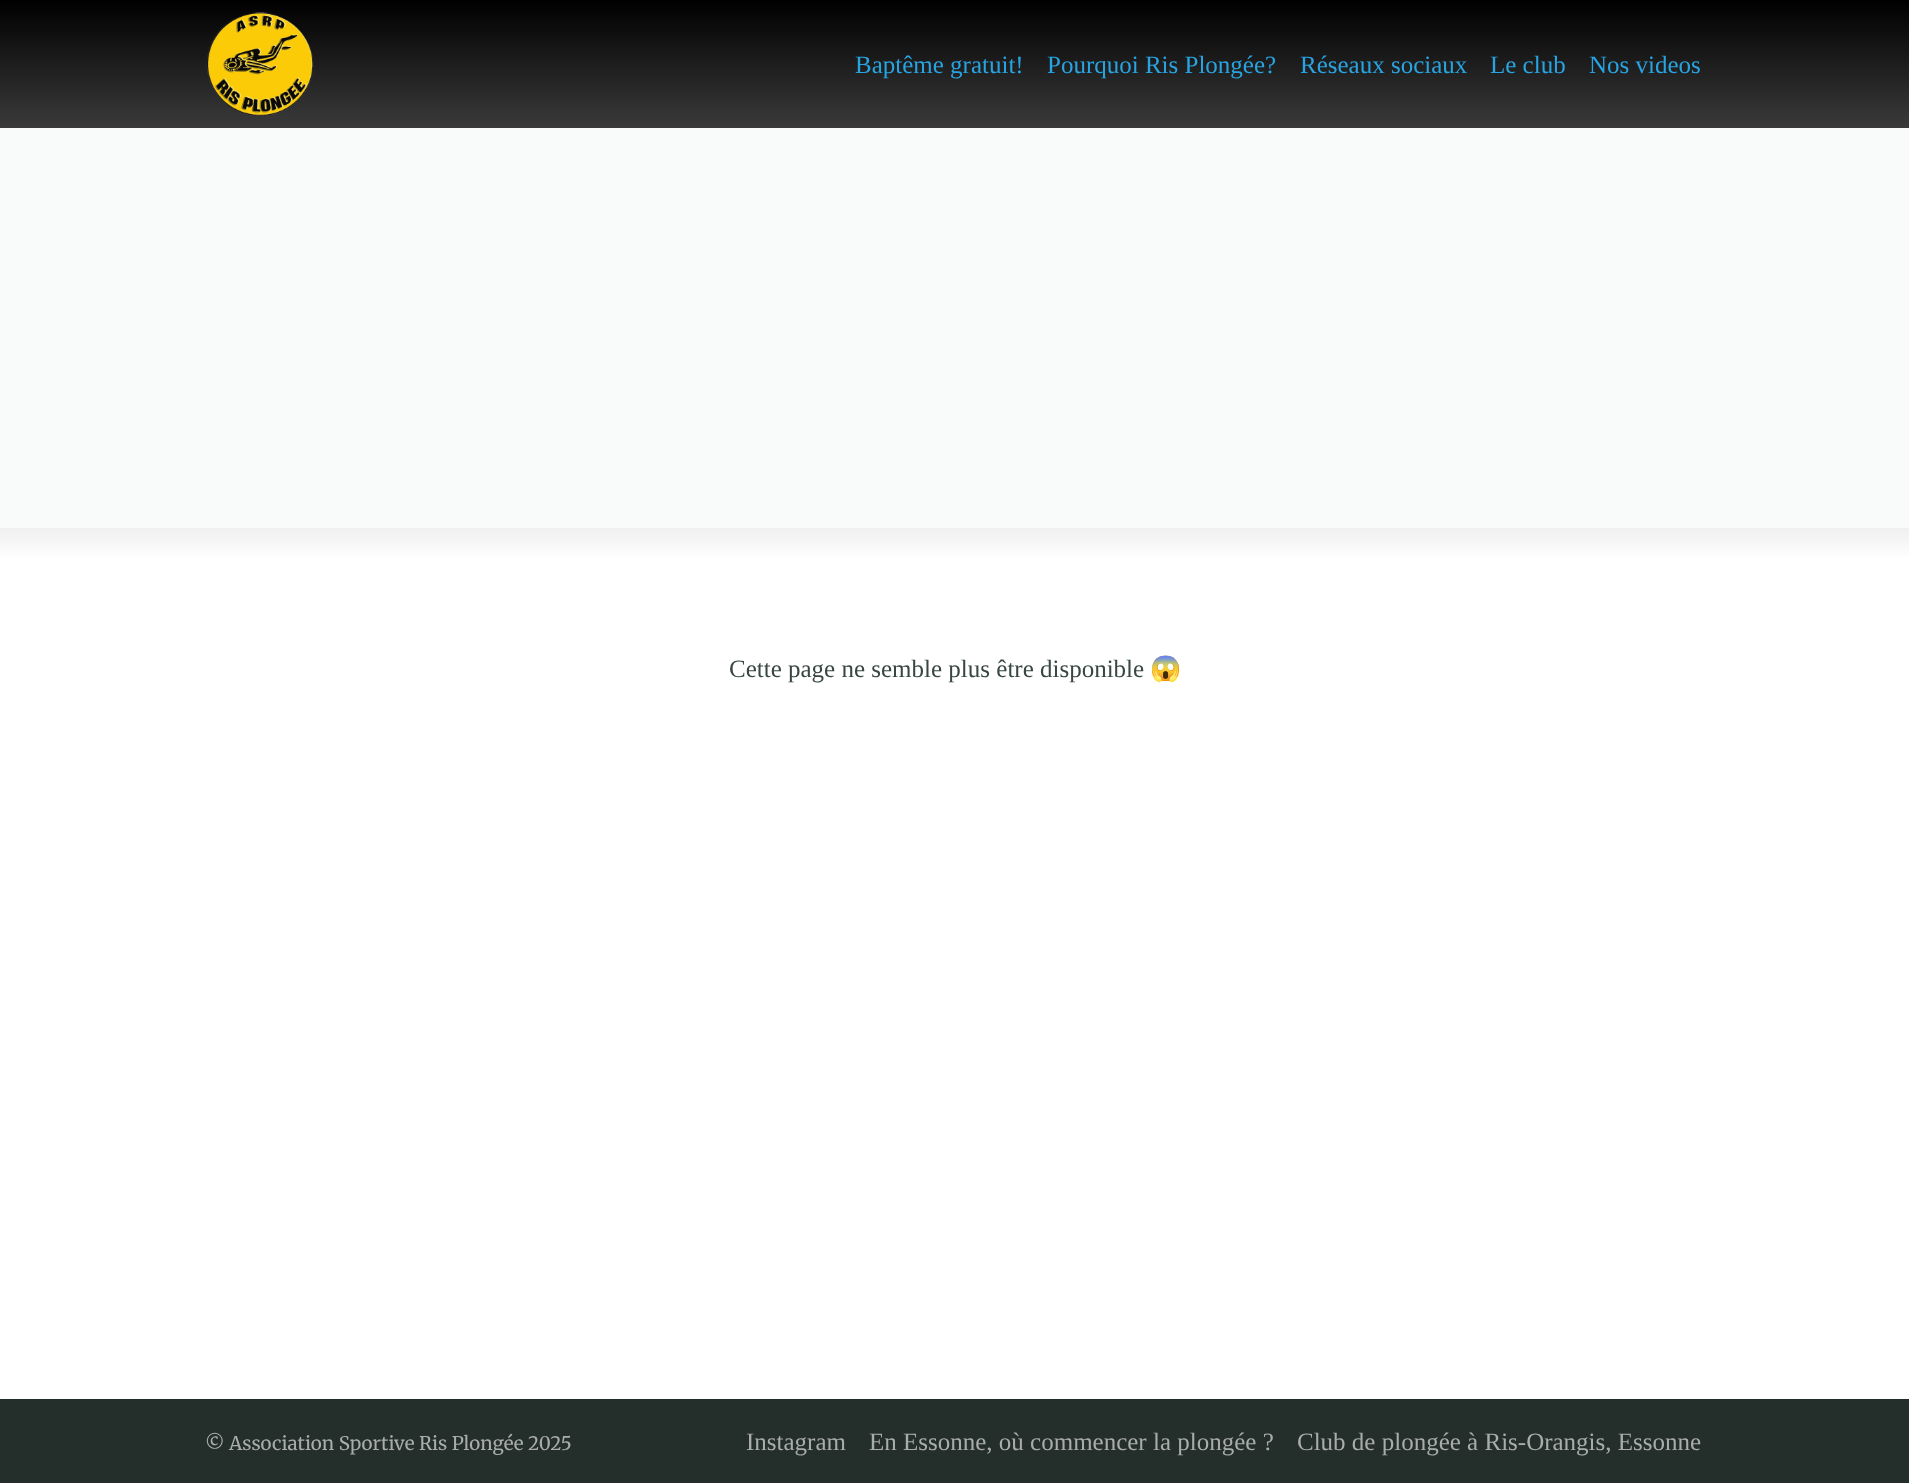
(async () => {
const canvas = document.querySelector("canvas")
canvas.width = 1909
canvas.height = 1483
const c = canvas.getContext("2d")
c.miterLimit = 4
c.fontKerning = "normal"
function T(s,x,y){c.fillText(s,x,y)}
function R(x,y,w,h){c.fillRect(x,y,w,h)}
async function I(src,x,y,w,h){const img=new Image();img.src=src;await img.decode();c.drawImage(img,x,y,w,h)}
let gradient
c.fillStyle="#fff"
R(0,0,1909,1483)
gradient = c.createLinearGradient(955,0,955,561)
gradient.addColorStop(0,"#000")
gradient.addColorStop(1,"#fff")
c.fillStyle = gradient
R(0,0,1909,556)
await I("1.png",206,12,108,104)
c.font="25px Liberation Serif"
c.fillStyle="#29a4e2"
T("Baptême gratuit!",855,73)
T("Pourquoi Ris Plongée?",1047,73)
T("Réseaux sociaux",1300,73)
T("Le club",1490,73)
T("Nos videos",1589,73)
c.fillStyle="#f9fafa"
R(0,128,1909,400)
c.fillStyle="#384743"
T("Cette page ne semble plus être disponible",729,677)
c.font="25px Noto Color Emoji"
T("😱",1150,677)
c.fillStyle="#242e2b"
R(0,1399,1909,84)
c.font="18.75px Merriweather"
c.fillStyle="#a8adac"
T("© Association Sportive Ris Plongée 2025",205,1450)
c.font="25px Liberation Serif"
T("Instagram",746,1450)
T("En Essonne, où commencer la plongée ?",869,1450)
T("Club de plongée à Ris-Orangis, Essonne",1297,1450)
})()
